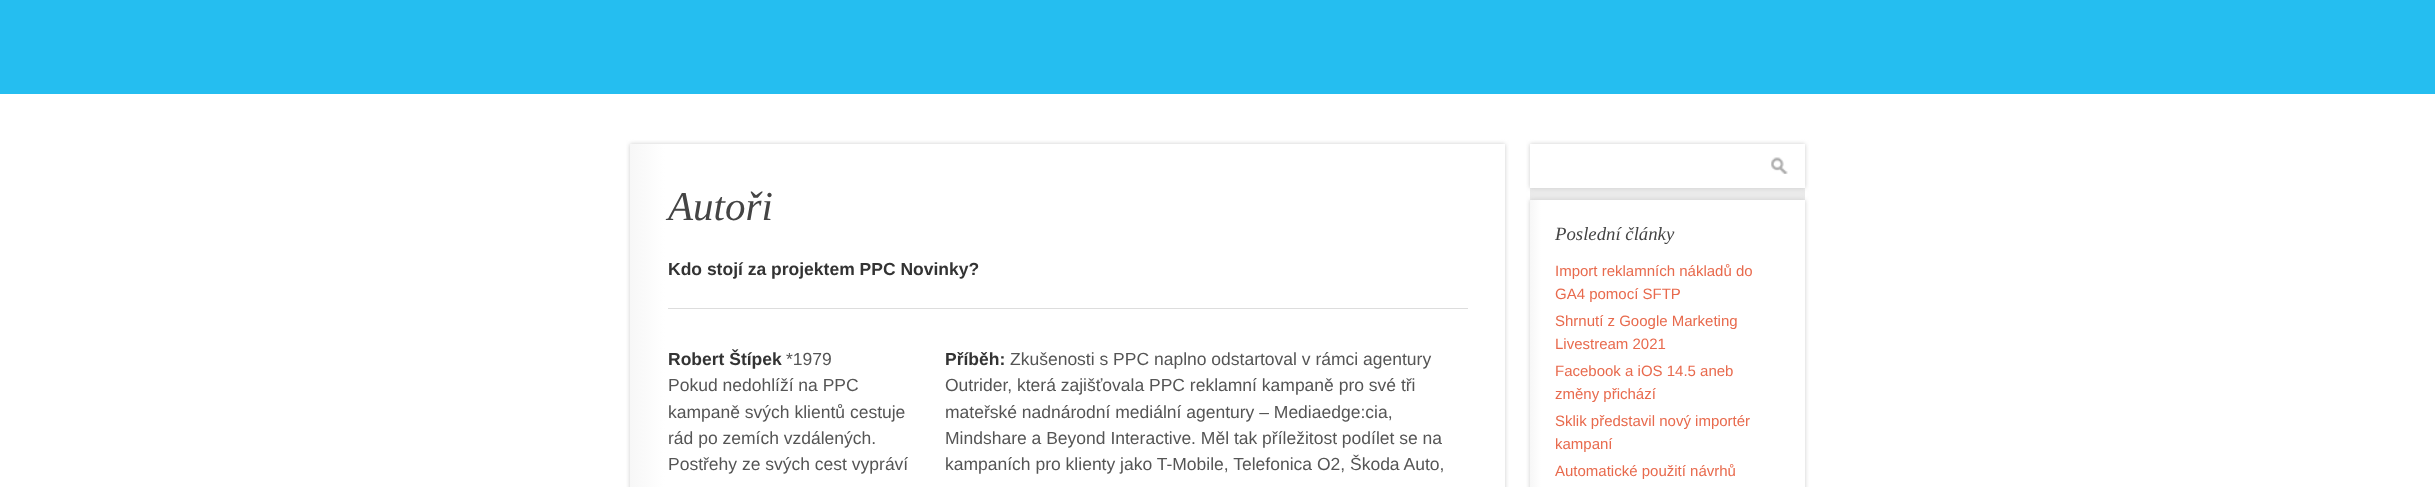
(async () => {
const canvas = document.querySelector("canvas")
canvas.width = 2435
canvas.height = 487
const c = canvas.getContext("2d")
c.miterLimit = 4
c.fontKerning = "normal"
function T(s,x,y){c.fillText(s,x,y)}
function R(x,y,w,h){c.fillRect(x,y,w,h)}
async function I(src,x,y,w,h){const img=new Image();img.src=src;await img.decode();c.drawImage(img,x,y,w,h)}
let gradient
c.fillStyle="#fff"
R(0,0,2435,487)
c.fillStyle="#25bef0"
R(0,0,2435,94)
c.fillStyle="#ccc"
c.filter="blur(2px)"
c.beginPath()
c.rect(630,144,875,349)
c.fill()
c.filter="none"
gradient = c.createLinearGradient(630,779,1505,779)
gradient.addColorStop(0,"#f7f7f7")
gradient.addColorStop(.04,"#fff")
gradient.addColorStop(1,"#fff")
c.fillStyle = gradient
R(630,144,875,343)
c.font="italic 41px Liberation Serif"
c.fillStyle="#444"
T("Autoři",668,220)
c.font="bold 17.5px Liberation Sans"
c.fillStyle="#333"
T("Kdo stojí za projektem PPC Novinky?",668,275)
c.fillStyle="#ddd"
R(668,308,800,1)
c.fillStyle="#333"
T("Robert Štípek",668,365)
c.font="17.5px Liberation Sans"
c.fillStyle="#555"
T("*1979",786,365)
T("Pokud nedohlíží na PPC",668,391)
T("kampaně svých klientů cestuje",668,418)
T("rád po zemích vzdálených.",668,444)
T("Postřehy ze svých cest vypráví",668,470)
c.font="bold 17.5px Liberation Sans"
c.fillStyle="#333"
T("Příběh:",945,365)
c.font="17.5px Liberation Sans"
c.fillStyle="#555"
T("Zkušenosti s PPC naplno odstartoval v rámci agentury",1010,365)
T("Outrider, která zajišťovala PPC reklamní kampaně pro své tři",945,391)
T("mateřské nadnárodní mediální agentury – Mediaedge:cia,",945,418)
T("Mindshare a Beyond Interactive. Měl tak příležitost podílet se na",945,444)
T("kampaních pro klienty jako T-Mobile, Telefonica O2, Škoda Auto,",945,470)
c.fillStyle="#eaeaea"
R(1530,188,275,12)
c.fillStyle="#ccc"
c.filter="blur(2px)"
c.beginPath()
c.rect(1530,144,275,44)
c.fill()
c.filter="none"
c.fillStyle="#fff"
R(1530,144,275,44)
await I("1.png",1771,157,17,17)
c.fillStyle="#ccc"
c.filter="blur(2px)"
c.beginPath()
c.rect(1530,200,275,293)
c.fill()
c.filter="none"
gradient = c.createLinearGradient(1530,438,1805,438)
gradient.addColorStop(0,"#f7f7f7")
gradient.addColorStop(.04,"#fff")
gradient.addColorStop(1,"#fff")
c.fillStyle = gradient
R(1530,200,275,287)
c.font="italic 18.75px Liberation Serif"
c.fillStyle="#444"
T("Poslední články",1555,240)
c.font="15px Liberation Sans"
c.fillStyle="#e86a4d"
T("Import reklamních nákladů do",1555,276)
T("GA4 pomocí SFTP",1555,299)
T("Shrnutí z Google Marketing",1555,326)
T("Livestream 2021",1555,349)
T("Facebook a iOS 14.5 aneb",1555,376)
T("změny přichází",1555,399)
T("Sklik představil nový importér",1555,426)
T("kampaní",1555,449)
T("Automatické použití návrhů",1555,476)
})()
